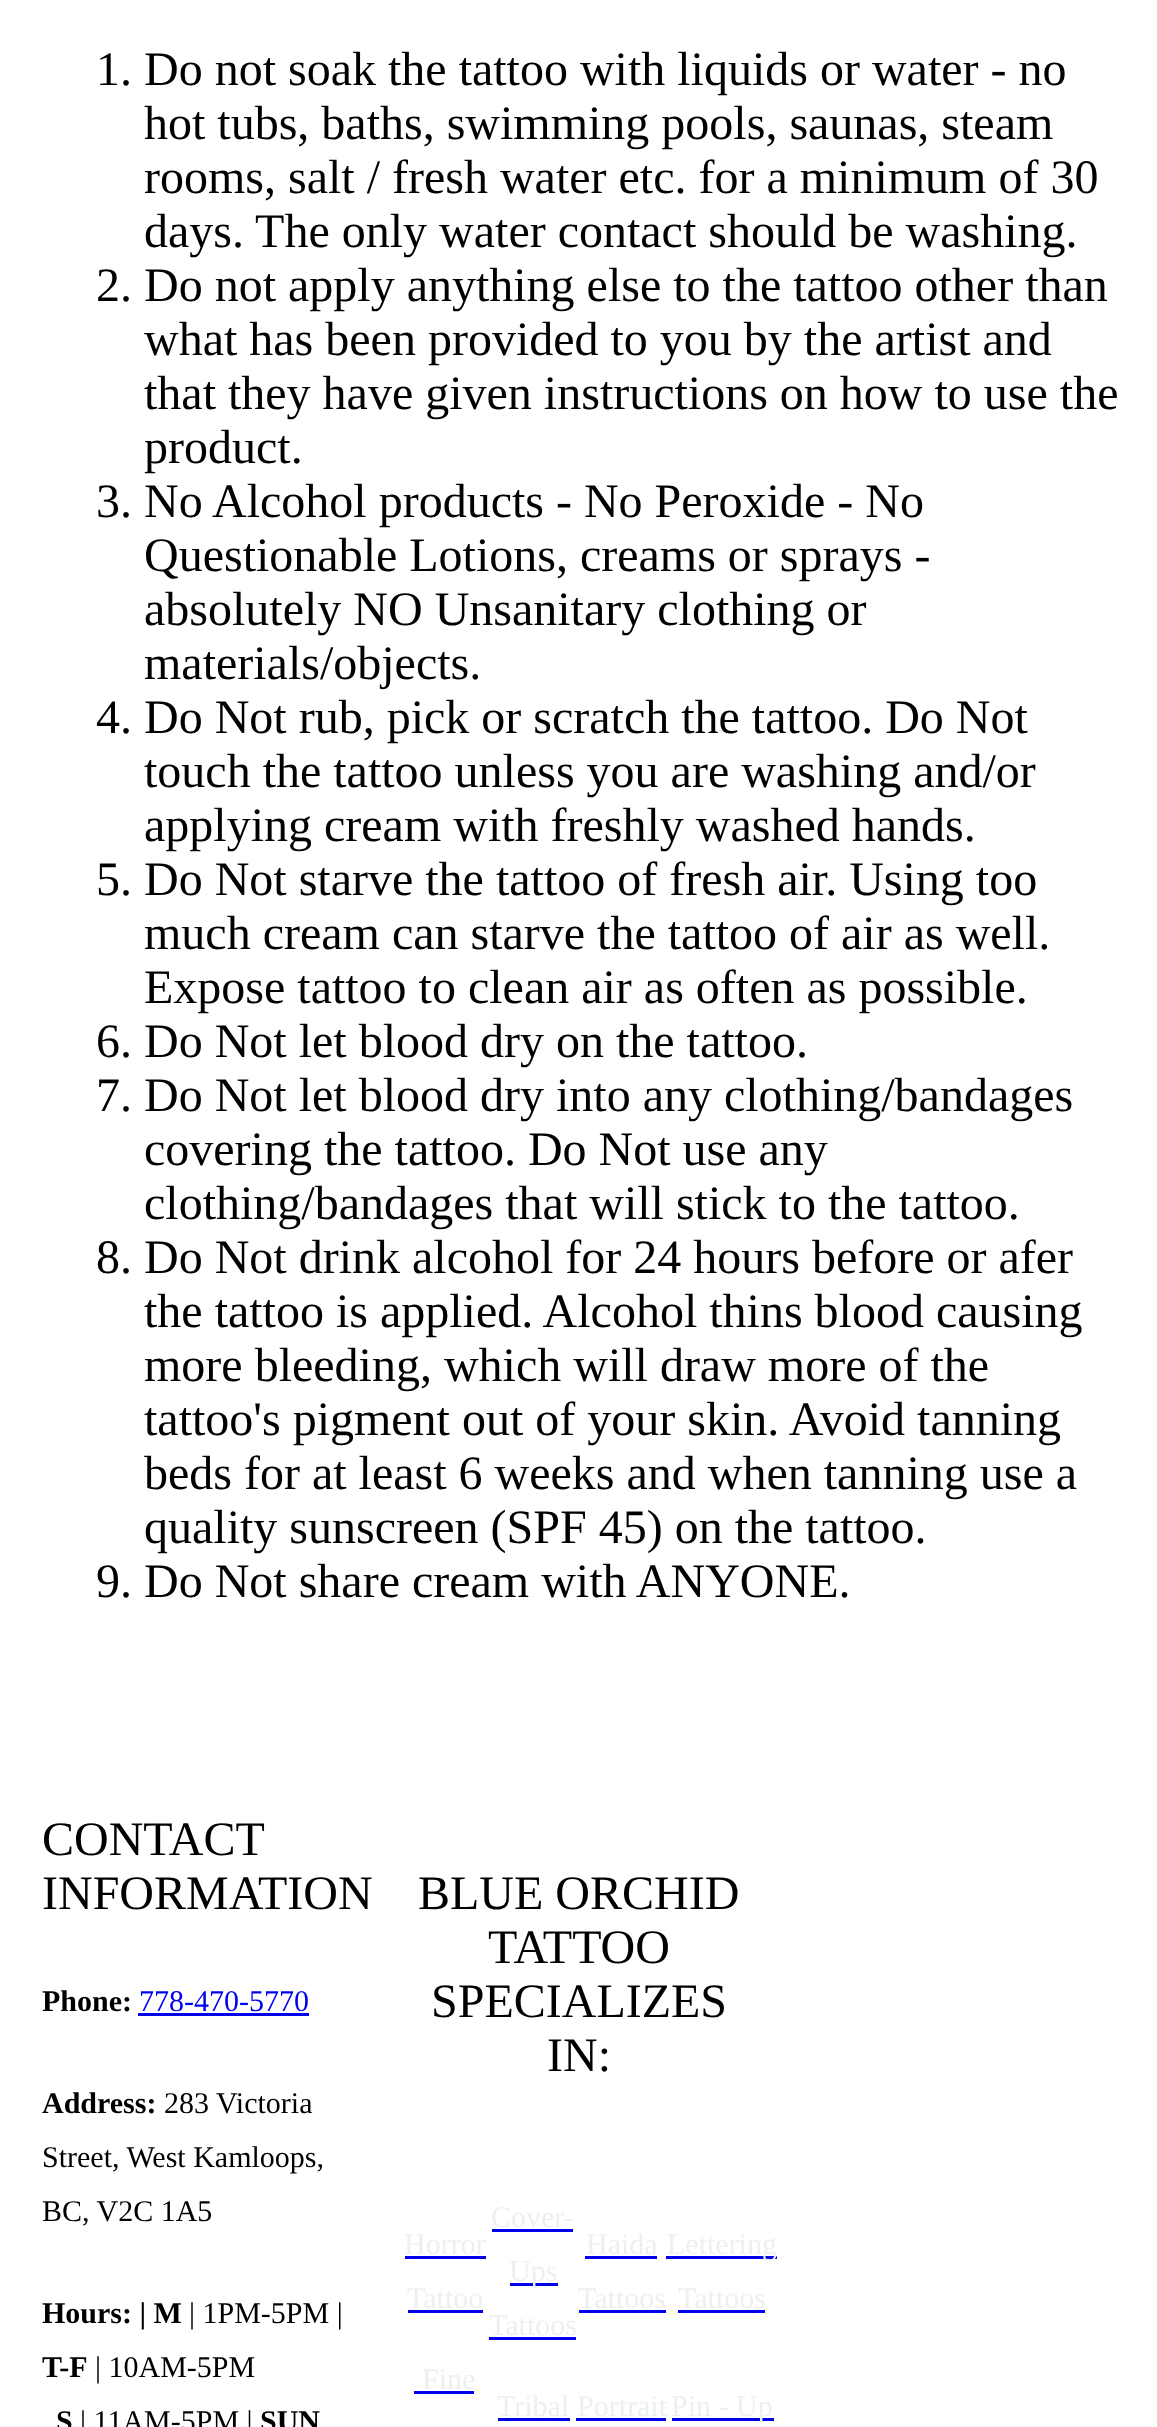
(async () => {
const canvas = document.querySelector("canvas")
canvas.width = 1157
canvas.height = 2427
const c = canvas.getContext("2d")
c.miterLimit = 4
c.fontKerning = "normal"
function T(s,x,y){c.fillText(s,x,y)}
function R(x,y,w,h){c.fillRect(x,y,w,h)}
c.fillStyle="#fff"
R(0,0,1157,2427)
c.font="48px Liberation Serif"
c.fillStyle="#000"
T("1. Do not soak the tattoo with liquids or water - no",96,85)
T("hot tubs, baths, swimming pools, saunas, steam",144,139)
T("rooms, salt / fresh water etc. for a minimum of 30",144,193)
T("days. The only water contact should be washing.",144,247)
T("2. Do not apply anything else to the tattoo other than",96,301)
T("what has been provided to you by the artist and",144,355)
T("that they have given instructions on how to use the",144,409)
T("product.",144,463)
T("3. No Alcohol products - No Peroxide - No",96,517)
T("Questionable Lotions, creams or sprays -",144,571)
T("absolutely NO Unsanitary clothing or",144,625)
T("materials/objects.",144,679)
T("4. Do Not rub, pick or scratch the tattoo. Do Not",96,733)
T("touch the tattoo unless you are washing and/or",144,787)
T("applying cream with freshly washed hands.",144,841)
T("5. Do Not starve the tattoo of fresh air. Using too",96,895)
T("much cream can starve the tattoo of air as well.",144,949)
T("Expose tattoo to clean air as often as possible.",144,1003)
T("6. Do Not let blood dry on the tattoo.",96,1057)
T("7. Do Not let blood dry into any clothing/bandages",96,1111)
T("covering the tattoo. Do Not use any",144,1165)
T("clothing/bandages that will stick to the tattoo.",144,1219)
T("8. Do Not drink alcohol for 24 hours before or afer",96,1273)
T("the tattoo is applied. Alcohol thins blood causing",144,1327)
T("more bleeding, which will draw more of the",144,1381)
T("tattoo's pigment out of your skin. Avoid tanning",144,1435)
T("beds for at least 6 weeks and when tanning use a",144,1489)
T("quality sunscreen (SPF 45) on the tattoo.",144,1543)
T("9. Do Not share cream with ANYONE.",96,1597)
T("CONTACT",42,1855)
T("INFORMATION",42,1909)
c.font="bold 30px Liberation Serif"
T("Phone:",42,2011)
c.font="30px Liberation Serif"
c.fillStyle="#00e"
T("778-470-5770",139,2011)
R(138,2013,171,3)
c.font="bold 30px Liberation Serif"
c.fillStyle="#000"
T("Address:",42,2113)
c.font="30px Liberation Serif"
T("283 Victoria",164,2113)
T("Street, West Kamloops,",42,2167)
T("BC, V2C 1A5",42,2221)
c.font="bold 30px Liberation Serif"
T("Hours: | M",42,2323)
c.font="30px Liberation Serif"
T("| 1PM-5PM |",189,2323)
c.font="bold 30px Liberation Serif"
T("T-F",42,2377)
c.font="30px Liberation Serif"
T("| 10AM-5PM",95,2377)
c.font="bold 30px Liberation Serif"
T("S",56,2431)
c.font="30px Liberation Serif"
T("| 11AM-5PM |",80,2431)
c.font="bold 30px Liberation Serif"
T("SUN",260,2431)
c.font="48px Liberation Serif"
T("BLUE ORCHID",418,1909)
T("TATTOO",488,1963)
T("SPECIALIZES",431,2017)
T("IN:",547,2071)
c.font="30px Liberation Serif"
c.fillStyle="#ecf0f1"
T("Horror",404,2254)
c.fillStyle="#00e"
R(405,2256,81,3)
c.fillStyle="#ecf0f1"
T("Tattoo",407,2308)
c.fillStyle="#00e"
R(408,2310,75,3)
c.fillStyle="#ecf0f1"
T("Cover-",491,2227)
c.fillStyle="#00e"
R(492,2229,81,3)
R(510,2283,48,3)
c.fillStyle="#ecf0f1"
T("Ups",509,2281)
T("Tattoos",489,2335)
c.fillStyle="#00e"
R(489,2337,87,3)
c.fillStyle="#ecf0f1"
T("Haida",586,2254)
c.fillStyle="#00e"
R(585,2256,72,3)
c.fillStyle="#ecf0f1"
T("Tattoos",578,2308)
c.fillStyle="#00e"
R(579,2310,87,3)
R(666,2256,111,3)
c.fillStyle="#ecf0f1"
T("Lettering",667,2254)
T("Tattoos",678,2308)
c.fillStyle="#00e"
R(678,2310,87,3)
c.fillStyle="#ecf0f1"
T("Fine",422,2389)
c.fillStyle="#00e"
R(414,2391,60,3)
c.fillStyle="#ecf0f1"
T("Tribal",497,2416)
c.fillStyle="#00e"
R(498,2418,72,3)
c.fillStyle="#ecf0f1"
T("Portrait",577,2416)
c.fillStyle="#00e"
R(576,2418,90,3)
R(672,2418,102,3)
c.fillStyle="#ecf0f1"
T("Pin - Up",671,2416)
})()
